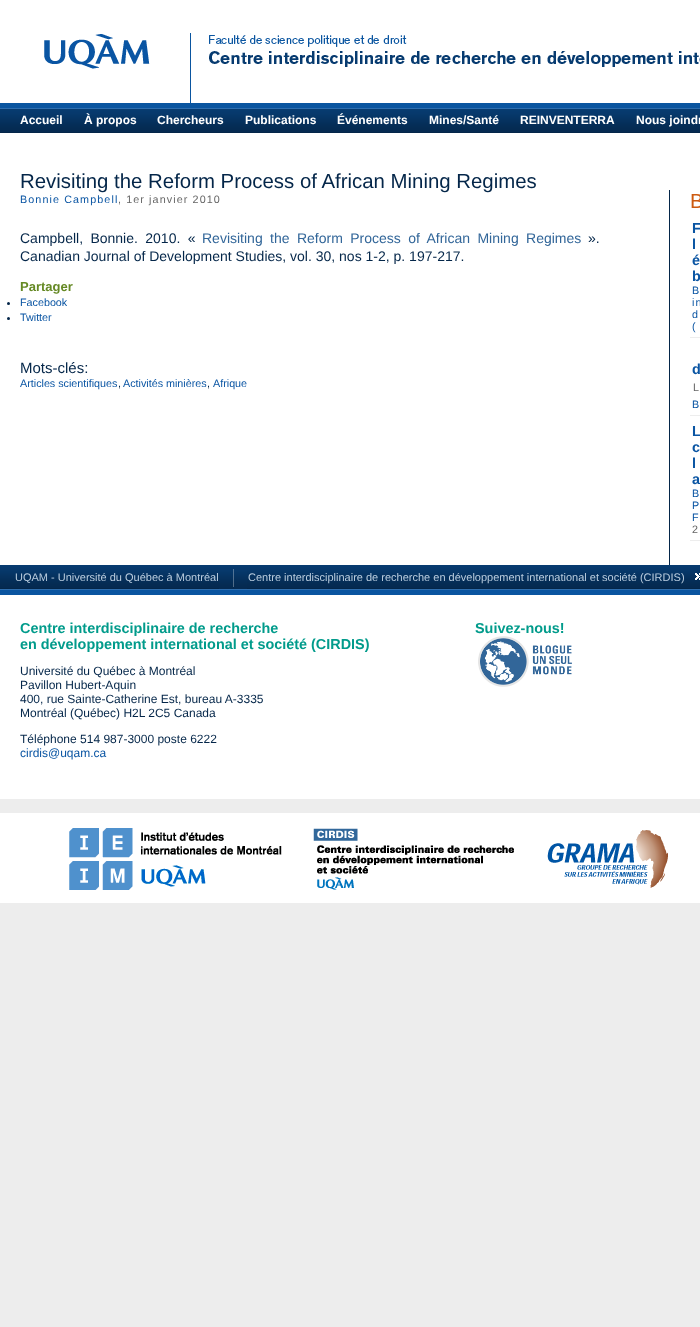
(async () => {
const canvas = document.querySelector("canvas")
canvas.width = 700
canvas.height = 1327
const c = canvas.getContext("2d")
c.miterLimit = 4
c.fontKerning = "normal"
function T(s,x,y){c.fillText(s,x,y)}
function R(x,y,w,h){c.fillRect(x,y,w,h)}
async function I(src,x,y,w,h){const img=new Image();img.src=src;await img.decode();c.drawImage(img,x,y,w,h)}
c.fillStyle="#ededed"
R(0,0,700,1327)
await I("1.png",0,0,700,133)
c.fillStyle="#fff"
R(65,102,1,1)
await I("2.png",44,34,106,35)
await I("3.png",190,33,510,70)
c.font="bold 12px Liberation Sans"
T("Accueil",20,124)
T("À propos",84,124)
T("Chercheurs",157,124)
T("Publications",245,124)
T("Événements",337,124)
T("Mines/Santé",429,124)
T("REINVENTERRA",520,124)
T("Nous joindr",636,124)
R(0,133,700,432)
c.font="20.4px Liberation Sans"
c.fillStyle="#042649"
T("Revisiting the Reform Process of African Mining Regimes",20,188)
c.letterSpacing="1.1px"
c.font="10.75px Liberation Sans"
c.fillStyle="#0a55a3"
T("Bonnie Campbell",20,203)
c.fillStyle="#666"
T(", 1er janvier 2010",118,203)
c.letterSpacing="0px"
c.wordSpacing="3.5px"
c.font="14px Liberation Sans"
c.fillStyle="#042649"
T("Campbell, Bonnie. 2010. «",20,243)
c.fillStyle="#326699"
T("Revisiting the Reform Process of African Mining Regimes",202,243)
c.wordSpacing="0px"
c.fillStyle="#042649"
T("».",588,243)
T("Canadian Journal of Development Studies, vol. 30, nos 1-2, p. 197-217.",20,261)
c.font="bold 13px Liberation Sans"
c.fillStyle="#658924"
T("Partager",20,291)
c.fillStyle="#042649"
c.beginPath()
c.arc(8.5,303.5,1.5,0,7)
c.fill()
c.font="10.75px Liberation Sans"
c.fillStyle="#0a55a3"
T("Facebook",20,306)
c.fillStyle="#042649"
c.beginPath()
c.arc(8.5,318.5,1.5,0,7)
c.fill()
c.fillStyle="#0a55a3"
T("Twitter",20,321)
c.font="15px Liberation Sans"
c.fillStyle="#042649"
T("Mots-clés:",20,373)
c.font="10.75px Liberation Sans"
c.fillStyle="#0a55a3"
T("Articles scientifiques",20,387)
c.fillStyle="#042649"
T(",",118,387)
c.fillStyle="#0a55a3"
T("Activités minières",123,387)
c.fillStyle="#042649"
T(",",207,387)
c.fillStyle="#0a55a3"
T("Afrique",213,387)
c.fillStyle="#042649"
R(669,190,1,375)
c.font="20.4px Liberation Sans"
c.fillStyle="#cd5a10"
T("B",690,208)
c.fillStyle="#ededed"
R(690,337,10,1)
c.font="bold 14.4px Liberation Sans"
c.fillStyle="#0a55a3"
T("F",692,233)
T("l",692,249)
T("é",692,265)
T("b",692,281)
c.letterSpacing="1.1px"
c.font="10.75px Liberation Sans"
T("B",692,294)
T("in",692,306)
T("d",692,318)
T("(",692,330)
c.fillStyle="#ededed"
R(690,415,10,1)
c.letterSpacing="0px"
c.font="bold 14.4px Liberation Sans"
c.fillStyle="#0a55a3"
T("d",692,374)
c.letterSpacing="1px"
c.font="10.75px Liberation Sans"
c.fillStyle="#666"
T("L",693,391)
c.letterSpacing="1.1px"
c.fillStyle="#0a55a3"
T("B",692,408)
c.fillStyle="#ededed"
R(690,540,10,1)
c.letterSpacing="0px"
c.font="bold 14.4px Liberation Sans"
c.fillStyle="#0a55a3"
T("L",692,436)
T("c",692,452)
T("l",692,468)
T("a",692,484)
c.letterSpacing="1.1px"
c.font="10.75px Liberation Sans"
T("B",692,497)
T("P",692,509)
T("F",692,521)
c.fillStyle="#666"
T("2",692,533)
await I("4.png",0,565,700,34)
c.letterSpacing="0px"
c.font="11px Liberation Sans"
c.fillStyle="#bacddf"
T("UQAM - Université du Québec à Montréal",15,581)
await I("5.png",219,569,28,20)
T("Centre interdisciplinaire de recherche en développement international et société (CIRDIS)",248,581)
await I("6.png",695,573,5,7)
c.fillStyle="#fff"
R(0,599,700,200)
c.font="bold 14.4px Liberation Sans"
c.fillStyle="#019b8b"
T("Centre interdisciplinaire de recherche",20,633)
T("en développement international et société (CIRDIS)",20,649)
c.font="12px Liberation Sans"
c.fillStyle="#042649"
T("Université du Québec à Montréal",20,675)
T("Pavillon Hubert-Aquin",20,689)
T("400, rue Sainte-Catherine Est, bureau A-3335",20,703)
T("Montréal (Québec) H2L 2C5 Canada",20,717)
T("Téléphone 514 987-3000 poste 6222",20,743)
c.fillStyle="#0a55a3"
T("cirdis@uqam.ca",20,757)
c.font="bold 14.4px Liberation Sans"
c.fillStyle="#019b8b"
T("Suivez-nous!",475,633)
await I("7.png",478,636,94,51)
c.fillStyle="#fff"
R(0,813,700,90)
await I("8.png",69,828,213,62)
await I("9.png",313,828,201,62)
await I("10.png",547,830,121,58)
})()
